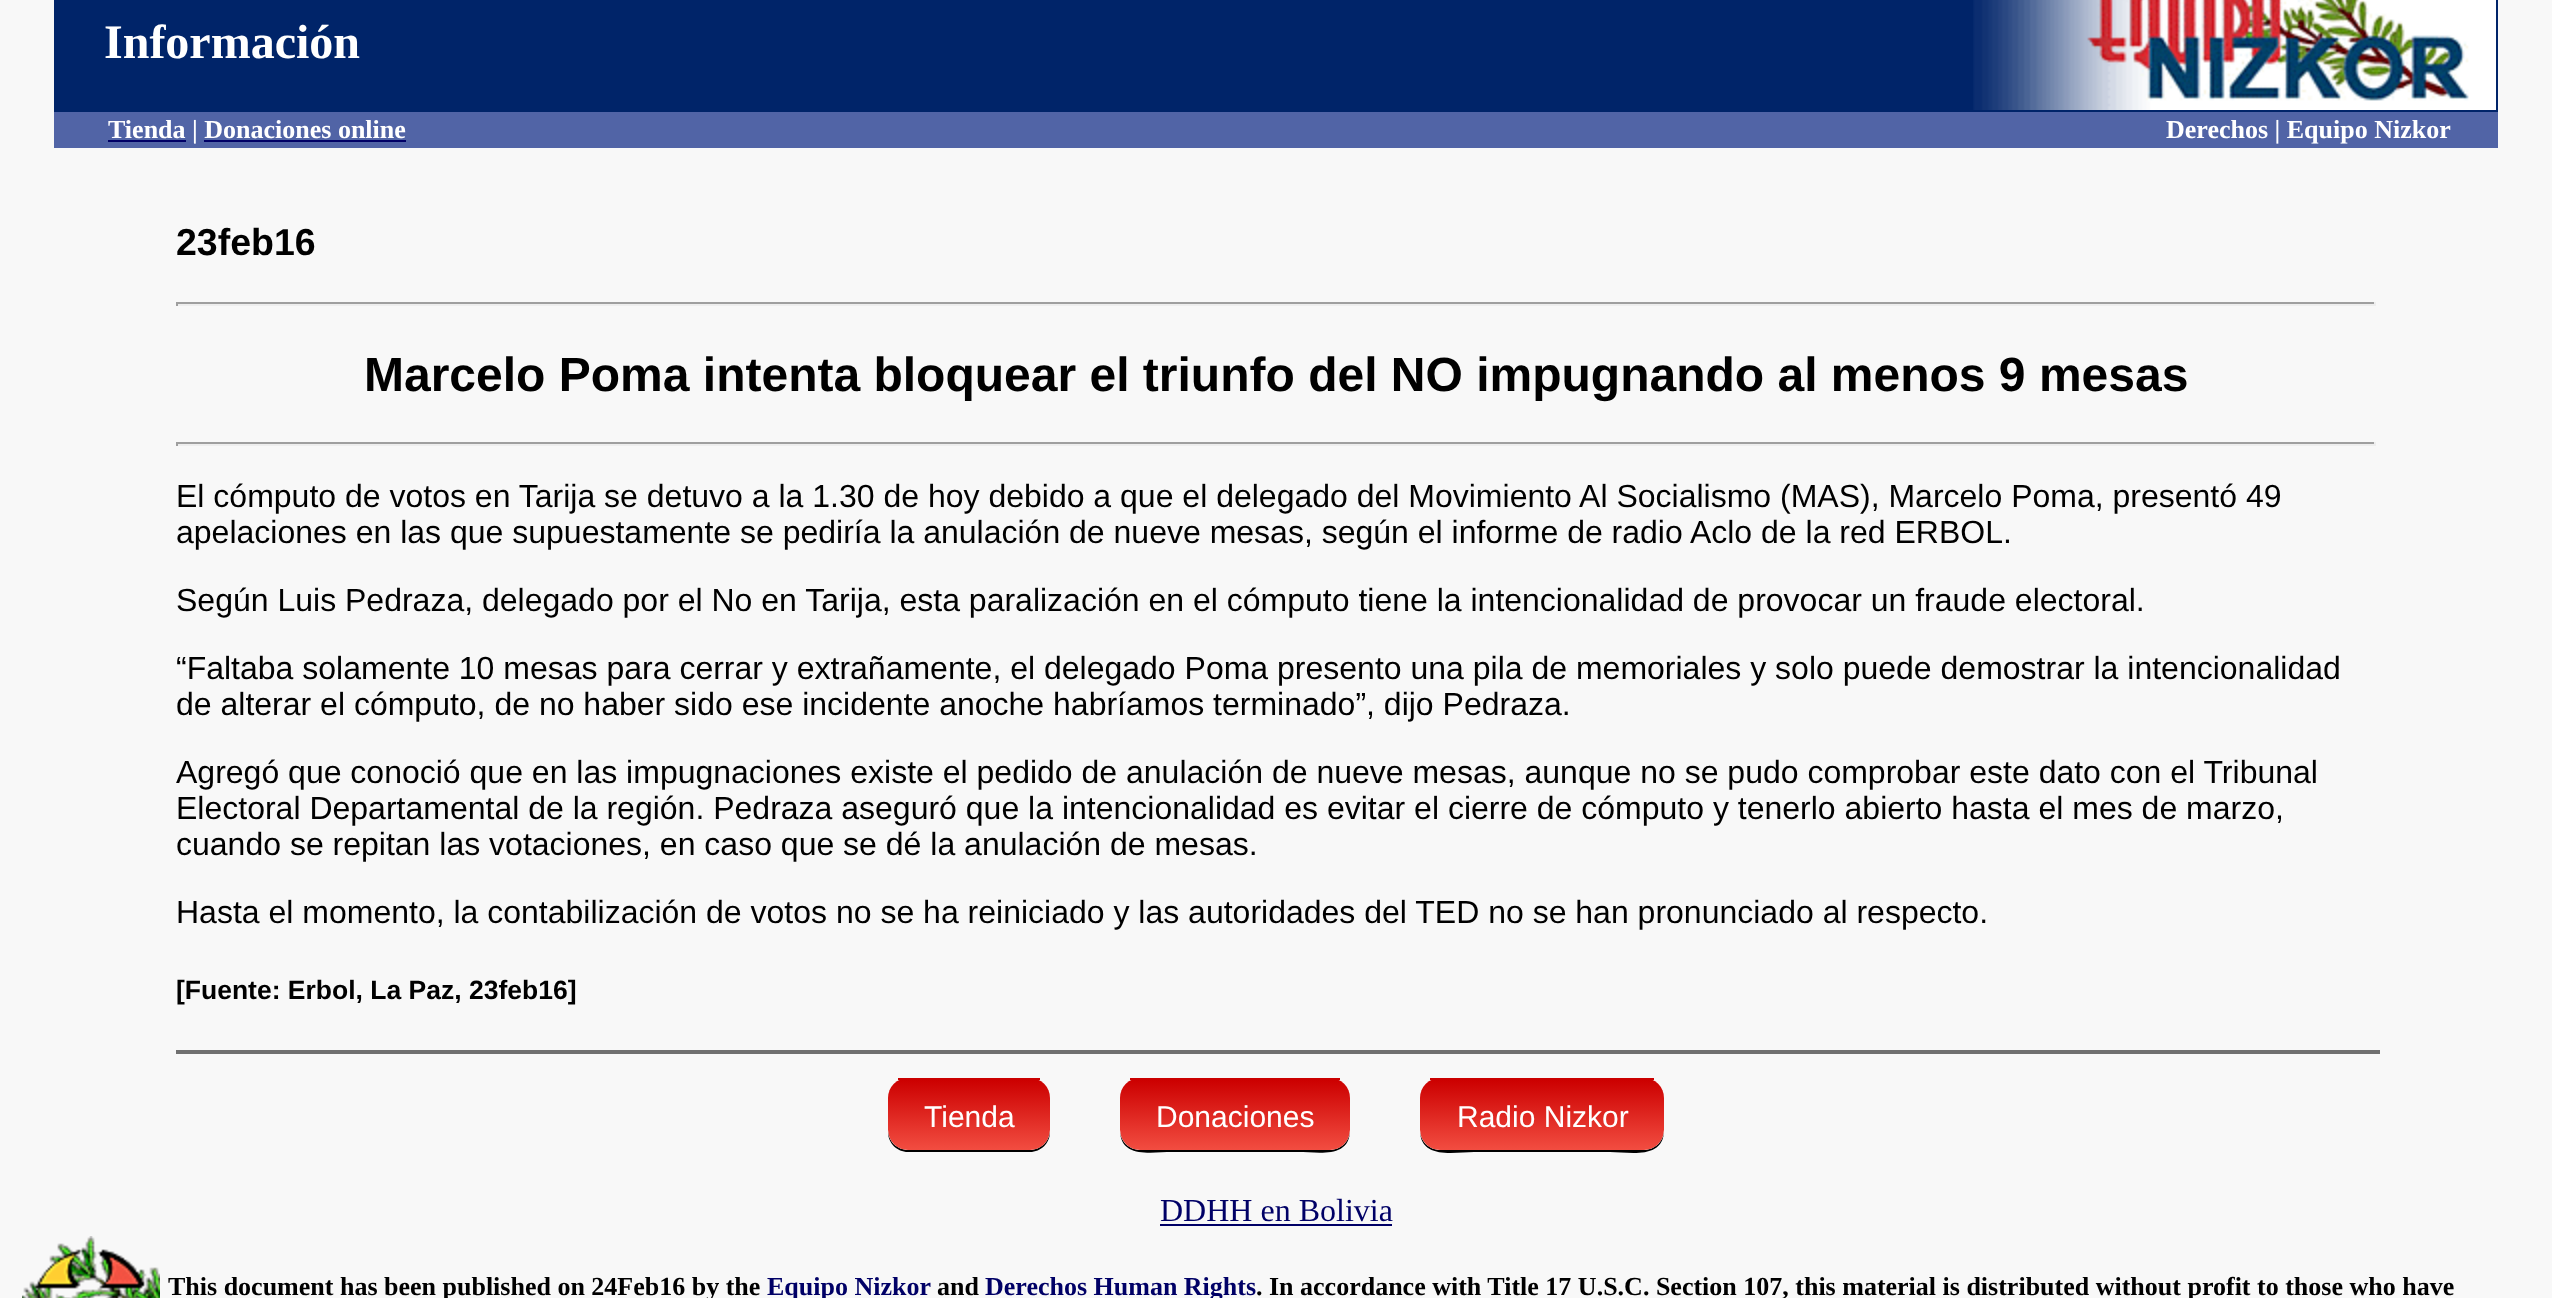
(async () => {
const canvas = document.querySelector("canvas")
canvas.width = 2552
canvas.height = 1298
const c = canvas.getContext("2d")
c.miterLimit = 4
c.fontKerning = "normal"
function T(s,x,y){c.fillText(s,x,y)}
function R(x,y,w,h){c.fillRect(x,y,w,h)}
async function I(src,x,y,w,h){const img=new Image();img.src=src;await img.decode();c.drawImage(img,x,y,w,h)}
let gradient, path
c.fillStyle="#f8f8f8"
R(0,0,2552,1298)
c.fillStyle="#002469"
R(54,0,2444,112)
c.font="bold 48px Liberation Serif"
c.fillStyle="#fff"
T("Información",104,58)
await I("1.png",1973,0,523,110)
c.fillStyle="#5164a6"
R(54,112,2444,36)
c.fillStyle="#006"
R(108,140,78,2)
c.font="bold 26px Liberation Serif"
c.fillStyle="#fff"
T("Tienda | Donaciones online",108,138)
c.fillStyle="#006"
R(204,140,202,2)
c.fillStyle="#fff"
T("Derechos | Equipo Nizkor",2166,138)
c.font="bold 37.5px Liberation Sans"
c.fillStyle="#000"
T("23feb16",176,255)
c.fillStyle="#9f9f9f"
R(176,302,2200,2)
c.fillStyle="#eee"
R(2374,302,2,4)
R(176,304,2200,2)
c.fillStyle="#9f9f9f"
R(176,302,2,4)
c.font="bold 48px Liberation Sans"
c.fillStyle="#000"
T("Marcelo Poma intenta bloquear el triunfo del NO impugnando al menos 9 mesas",364,391)
c.fillStyle="#9f9f9f"
R(176,442,2200,2)
c.fillStyle="#eee"
R(2374,442,2,4)
R(176,444,2200,2)
c.fillStyle="#9f9f9f"
R(176,442,2,4)
c.font="32px Liberation Sans"
c.fillStyle="#000"
T("El cómputo de votos en Tarija se detuvo a la 1.30 de hoy debido a que el delegado del Movimiento Al Socialismo (MAS), Marcelo Poma, presentó 49",176,507)
T("apelaciones en las que supuestamente se pediría la anulación de nueve mesas, según el informe de radio Aclo de la red ERBOL.",176,543)
T("Según Luis Pedraza, delegado por el No en Tarija, esta paralización en el cómputo tiene la intencionalidad de provocar un fraude electoral.",176,611)
T("“Faltaba solamente 10 mesas para cerrar y extrañamente, el delegado Poma presento una pila de memoriales y solo puede demostrar la intencionalidad",176,679)
T("de alterar el cómputo, de no haber sido ese incidente anoche habríamos terminado”, dijo Pedraza.",176,715)
T("Agregó que conoció que en las impugnaciones existe el pedido de anulación de nueve mesas, aunque no se pudo comprobar este dato con el Tribunal",176,783)
T("Electoral Departamental de la región. Pedraza aseguró que la intencionalidad es evitar el cierre de cómputo y tenerlo abierto hasta el mes de marzo,",176,819)
T("cuando se repitan las votaciones, en caso que se dé la anulación de mesas.",176,855)
T("Hasta el momento, la contabilización de votos no se ha reiniciado y las autoridades del TED no se han pronunciado al respecto.",176,923)
c.font="bold 26.5px Liberation Sans"
T("[Fuente: Erbol, La Paz, 23feb16]",176,999)
c.fillStyle="#707070"
R(176,1050,2204,4)
c.fillStyle="#000"
path = new Path2D("M888 1130v2c0 11 9 20 20 20h122c11 0 20-9 20-20v-2c0 11-9 20-20 20h-122c-11 0-20-9-20-20z")
c.fill(path)
c.save()
c.beginPath()
c.roundRect(888,1078,162,72,20)
c.clip()
gradient = c.createLinearGradient(969,1080,969,1150)
gradient.addColorStop(0,"#c00")
gradient.addColorStop(1,"#f24d41")
c.fillStyle = gradient
c.beginPath()
c.roundRect(888,1080,162,70,[0,0,20,20])
c.fill()
c.restore()
c.font="30px Liberation Sans"
c.fillStyle="#fff"
T("Tienda",924,1127)
c.fillStyle="#cb0000"
R(898,1078,142,2)
c.fillStyle="#000"
path = new Path2D("M1120 1130c0 29 32 22 52 22h126c20 0 52 7 52-22c0 11-9 20-20 20h-190c-11 0-20-9-20-20z")
c.fill(path)
c.save()
c.beginPath()
c.roundRect(1120,1078,230,72,20)
c.clip()
gradient = c.createLinearGradient(1235,1080,1235,1150)
gradient.addColorStop(0,"#c00")
gradient.addColorStop(1,"#f24d41")
c.fillStyle = gradient
c.beginPath()
c.roundRect(1120,1080,230,70,[0,0,20,20])
c.fill()
c.restore()
c.fillStyle="#fff"
T("Donaciones",1156,1127)
c.fillStyle="#cb0000"
R(1130,1078,210,2)
c.fillStyle="#000"
path = new Path2D("M1420 1130c0 30 35 22 54 22h136c19 0 54 8 54-22c0 11-9 20-20 20h-204c-11 0-20-9-20-20z")
c.fill(path)
c.save()
c.beginPath()
c.roundRect(1420,1078,244,72,20)
c.clip()
gradient = c.createLinearGradient(1542,1080,1542,1150)
gradient.addColorStop(0,"#c00")
gradient.addColorStop(1,"#f24d41")
c.fillStyle = gradient
c.beginPath()
c.roundRect(1420,1080,244,70,[0,0,20,20])
c.fill()
c.restore()
c.fillStyle="#fff"
T("Radio Nizkor",1457,1127)
c.fillStyle="#cb0000"
R(1430,1078,224,2)
c.font="32px Liberation Serif"
c.fillStyle="#006"
T("DDHH en Bolivia",1160,1221)
R(1160,1224,232,2)
await I("2.png",22,1236,138,62)
c.font="bold 26px Liberation Serif"
c.fillStyle="#000"
T("This document has been published on 24Feb16 by the",168,1295)
c.fillStyle="#006"
T("Equipo Nizkor",767,1295)
c.fillStyle="#000"
T("and",937,1295)
c.fillStyle="#006"
T("Derechos Human Rights",985,1295)
c.fillStyle="#000"
T(". In accordance with Title 17 U.S.C. Section 107, this material is distributed without profit to those who have",1256,1295)
})()
